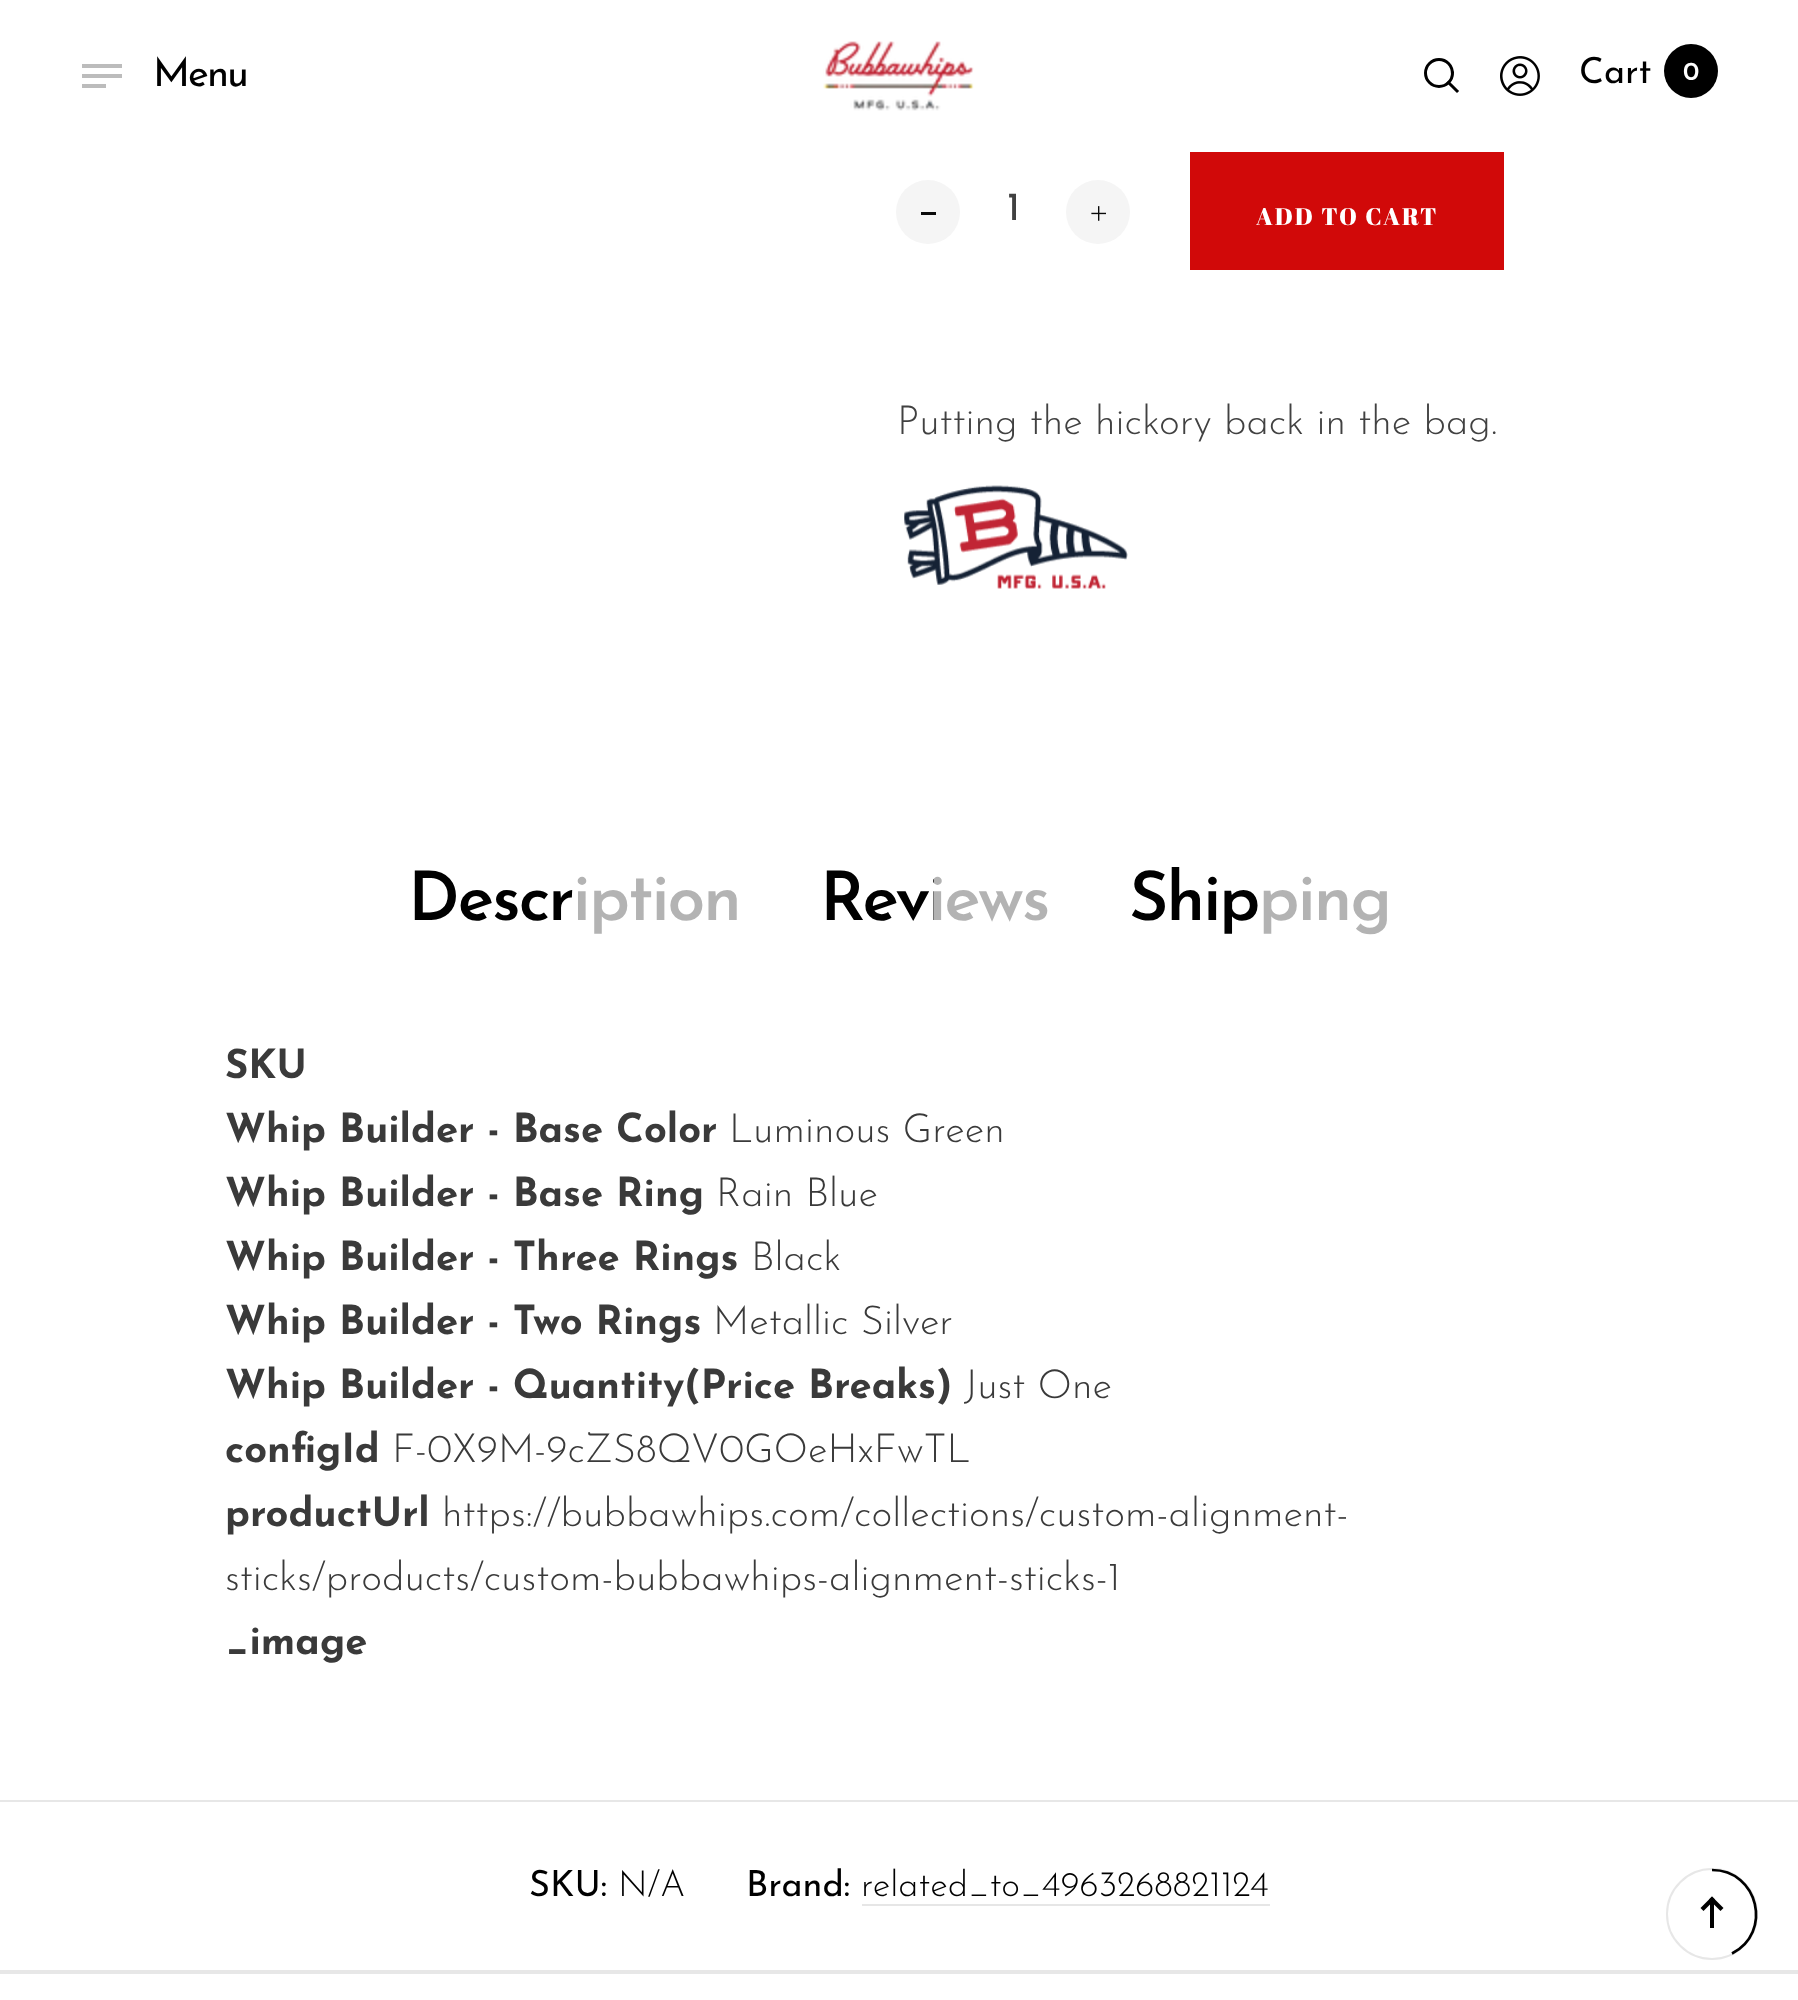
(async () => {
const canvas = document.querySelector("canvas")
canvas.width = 1798
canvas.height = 2000
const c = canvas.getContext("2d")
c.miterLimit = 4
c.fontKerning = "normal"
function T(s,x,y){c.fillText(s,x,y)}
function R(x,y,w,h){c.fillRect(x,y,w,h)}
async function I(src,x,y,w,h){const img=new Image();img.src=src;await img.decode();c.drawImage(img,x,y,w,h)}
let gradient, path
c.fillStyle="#fff"
R(0,0,1798,2000)
c.fillStyle="#bcbcbc"
R(82,64,40,4)
R(82,74,40,4)
R(82,84,24,4)
c.letterSpacing="-2px"
c.font="40px Josefin Sans"
c.fillStyle="#000"
T("Menu",153,86)
await I("1.png",823,41,151,70)
path = new Path2D("M1457 91l-8.5-8.5")
c.strokeStyle="#000"
c.lineWidth=3
c.lineCap="square"
c.stroke(path)
c.beginPath()
c.arc(1439,73,13.5,0,7)
c.stroke()
await I("2.png",1500,56,40,40)
c.letterSpacing="0px"
c.font="36px Josefin Sans"
T("Cart",1579,83)
c.beginPath()
c.arc(1691,71,27,0,7)
c.fill()
c.font="600 26px Josefin Sans"
c.fillStyle="#fff"
T("0",1683,80)
c.fillStyle="#e7e7e7"
R(0,1970,1798,4)
c.fillStyle="#f5f5f5"
c.beginPath()
c.arc(928,212,32,0,7)
c.fill()
c.fillStyle="#0a0a0a"
R(921,212,15,3)
c.font="40px Josefin Sans"
c.fillStyle="#414141"
T("1",1007,220)
c.fillStyle="#f5f5f5"
c.beginPath()
c.arc(1098,212,32,0,7)
c.fill()
await I("3.png",1091,206,15,15)
c.fillStyle="#d10909"
R(1190,152,314,118)
c.letterSpacing="2px"
c.font="24px Abril Fatface"
c.fillStyle="#fff"
T("ADD TO CART",1256,225)
c.letterSpacing="0px"
c.font="300 40px Josefin Sans"
c.fillStyle="#414141"
T("Putting the hickory back in the bag.",897,434)
await I("4.png",904,485,224,104)
c.fillStyle="#e7e7e7"
R(0,1800,1798,2)
c.letterSpacing="-2px"
c.font="600 68px Josefin Sans"
gradient = c.createLinearGradient(388,903,760,903)
gradient.addColorStop(0,"#000")
gradient.addColorStop(.5,"#000")
gradient.addColorStop(.5,"#b3b3b3")
c.fillStyle = gradient
T("Description",408,920)
gradient = c.createLinearGradient(800,903,1069,903)
gradient.addColorStop(0,"#000")
gradient.addColorStop(.5,"#000")
gradient.addColorStop(.5,"#b3b3b3")
c.fillStyle = gradient
T("Reviews",820,920)
gradient = c.createLinearGradient(1109,903,1410,903)
gradient.addColorStop(0,"#000")
gradient.addColorStop(.5,"#000")
gradient.addColorStop(.5,"#b3b3b3")
c.fillStyle = gradient
T("Shipping",1129,920)
c.letterSpacing="0px"
c.font="bold 40px Josefin Sans"
c.fillStyle="#3a3a3a"
T("SKU",225,1078)
T("Whip Builder - Base Color",225,1142)
c.font="300 40px Josefin Sans"
T("Luminous Green",729,1142)
c.font="bold 40px Josefin Sans"
T("Whip Builder - Base Ring",225,1206)
c.font="300 40px Josefin Sans"
T("Rain Blue",716,1206)
c.font="bold 40px Josefin Sans"
T("Whip Builder - Three Rings",225,1270)
c.font="300 40px Josefin Sans"
T("Black",751,1270)
c.font="bold 40px Josefin Sans"
T("Whip Builder - Two Rings",225,1334)
c.font="300 40px Josefin Sans"
T("Metallic Silver",713,1334)
c.font="bold 40px Josefin Sans"
T("Whip Builder - Quantity(Price Breaks)",225,1398)
c.font="300 40px Josefin Sans"
T("Just One",964,1398)
c.font="bold 40px Josefin Sans"
T("configId",225,1462)
c.font="300 40px Josefin Sans"
T("F-0X9M-9cZS8QV0GOeHxFwTL",392,1462)
c.font="bold 40px Josefin Sans"
T("productUrl",225,1526)
c.font="300 40px Josefin Sans"
T("https://bubbawhips.com/collections/custom-alignment-",442,1526)
T("sticks/products/custom-bubbawhips-alignment-sticks-1",225,1590)
c.font="bold 40px Josefin Sans"
T("_image",225,1654)
c.font="36px Josefin Sans"
c.fillStyle="#000"
T("SKU:",529,1896)
c.font="300 36px Josefin Sans"
T("N/A",618,1896)
c.font="36px Josefin Sans"
T("Brand:",746,1896)
c.font="300 36px Josefin Sans"
T("related_to_4963268821124",861,1896)
c.fillStyle="#e6e6e6"
R(862,1904,408,2)
c.beginPath()
c.arc(1712,1914,45,0,7)
c.strokeStyle="#e7e7e7"
c.lineWidth=2
c.stroke()
path = new Path2D("M1712 1870c46.5 0 61 63 20 83.5")
c.strokeStyle="#000"
c.lineWidth=2.7
c.lineCap="butt"
c.stroke(path)
c.fillStyle="#000"
path = new Path2D("M1715 1899.5l-11.5 11.5l-3-3l11.5-11.5z")
c.fill(path)
path = new Path2D("M1723.5 1908l-3 3l-11.5-11.5l3-3z")
c.fill(path)
R(1710,1900,4,28)
})()
